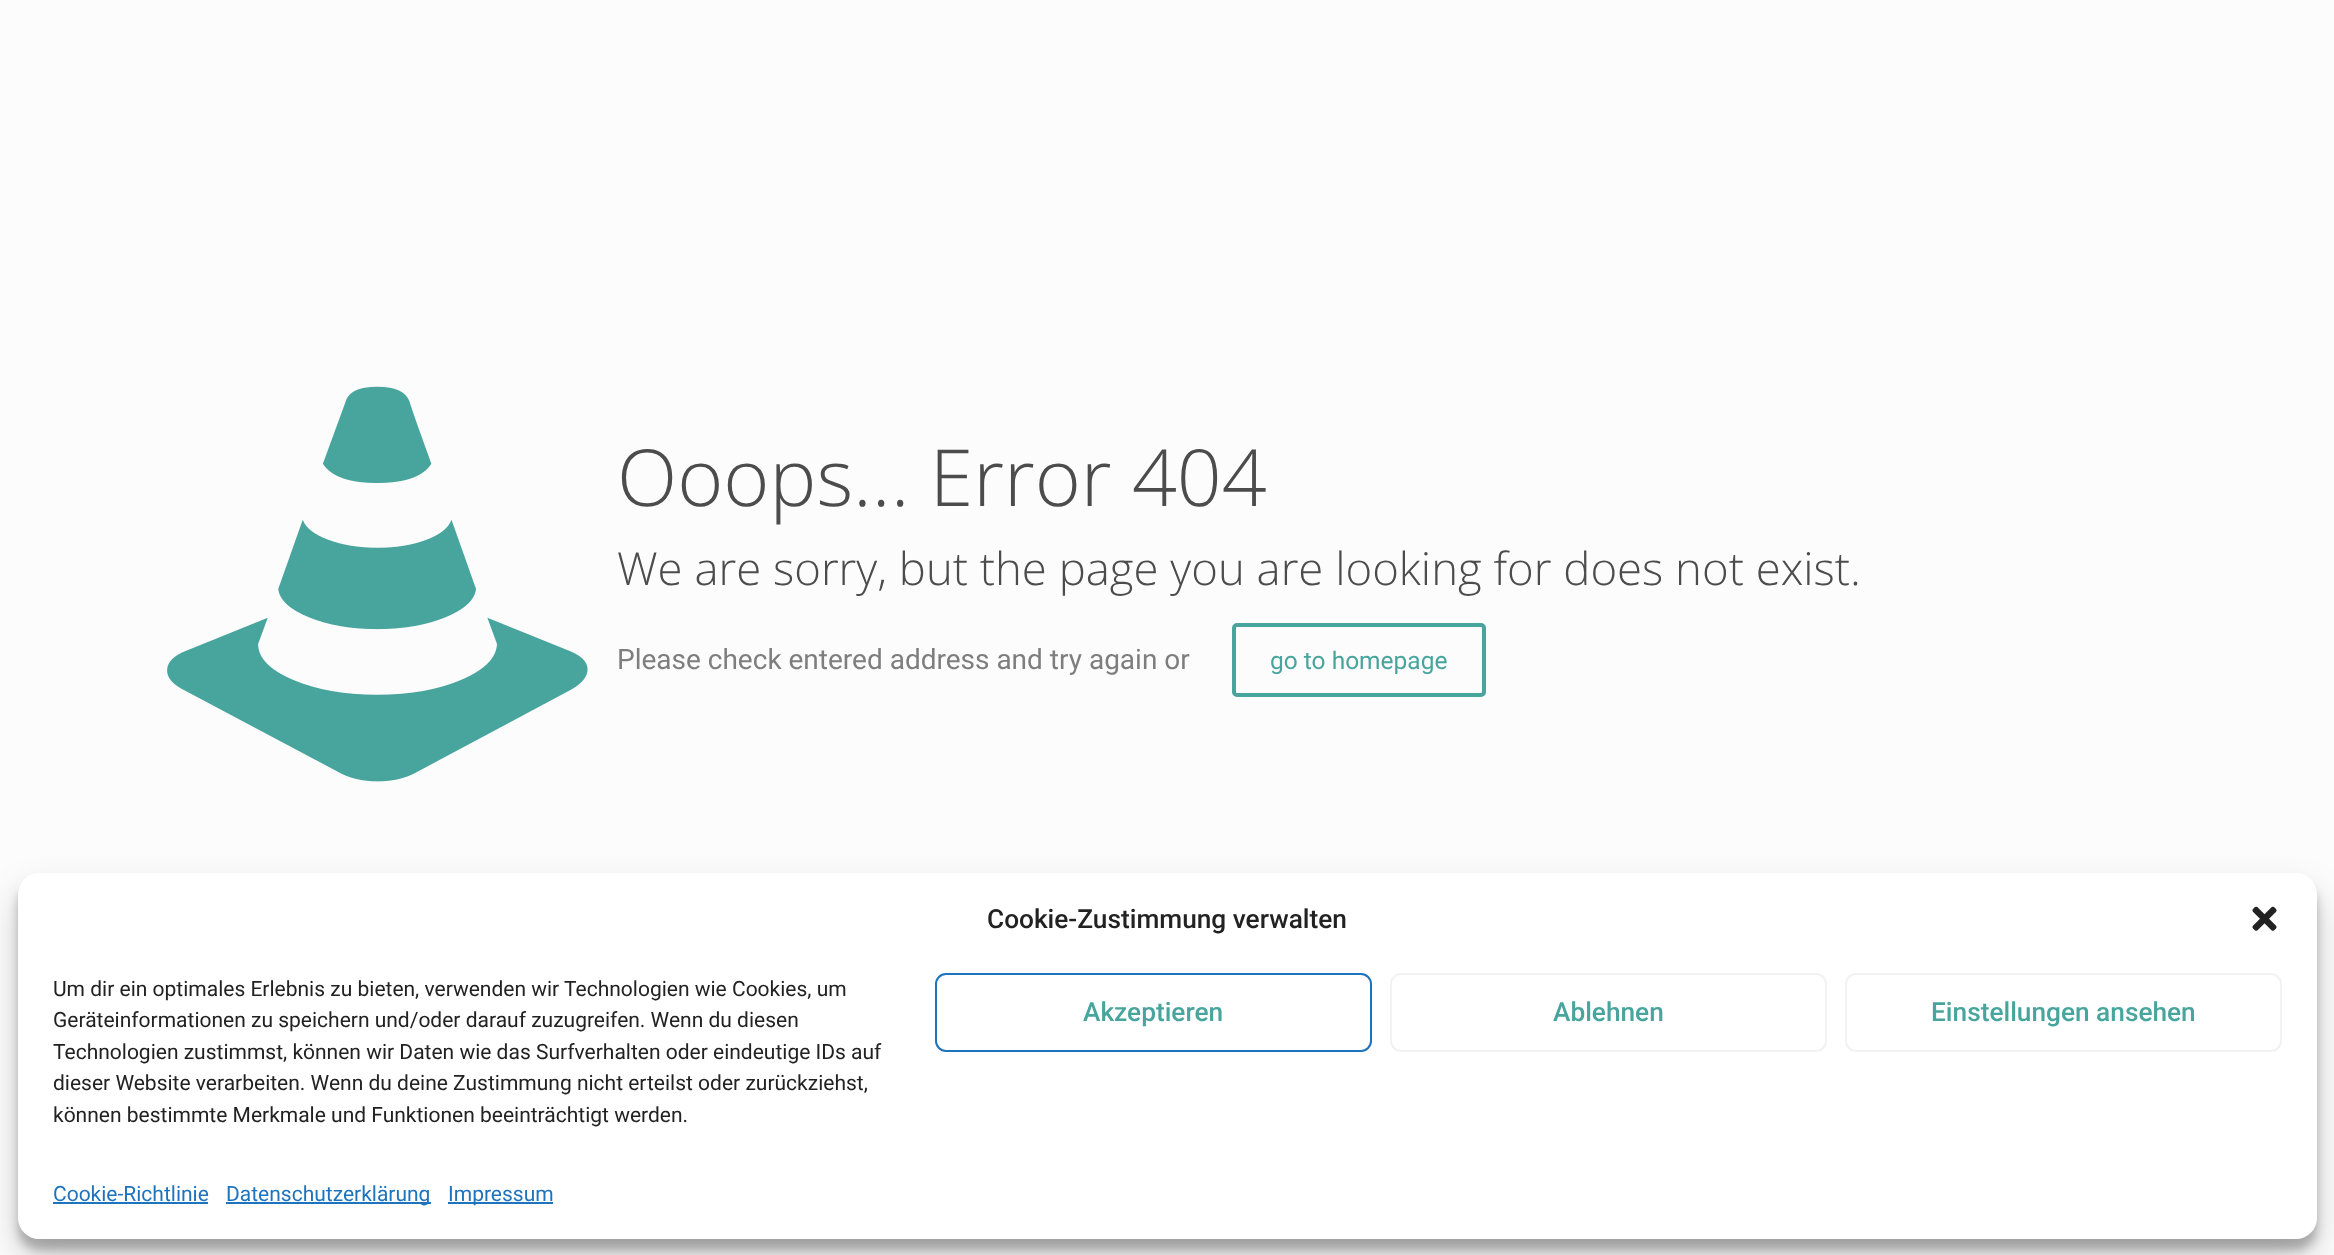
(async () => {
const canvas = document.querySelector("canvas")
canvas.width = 2334
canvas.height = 1255
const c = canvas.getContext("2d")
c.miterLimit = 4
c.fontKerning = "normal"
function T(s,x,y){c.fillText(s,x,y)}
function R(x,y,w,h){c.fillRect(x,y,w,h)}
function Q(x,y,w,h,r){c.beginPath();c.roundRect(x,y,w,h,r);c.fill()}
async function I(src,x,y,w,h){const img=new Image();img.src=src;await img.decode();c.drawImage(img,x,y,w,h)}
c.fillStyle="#fcfcfc"
R(0,0,2334,1255)
await I("1.png",167,386,421,396)
c.font="300 78.75px Open Sans"
c.fillStyle="#4c4c4c"
T("Ooops... Error 404",617,506)
c.font="300 45.5px Open Sans"
T("We are sorry, but the page you are looking for does not exist.",617,585)
c.font="28px Roboto"
c.fillStyle="#7e7e7e"
T("Please check entered address and try again or",617,669)
c.beginPath()
c.roundRect(1234,625,250,70,3)
c.strokeStyle="#48a59d"
c.lineWidth=4
c.stroke()
c.font="24.5px Roboto"
c.fillStyle="#48a59d"
T("go to homepage",1270,669)
c.fillStyle="#0000003b"
c.filter="blur(5px)"
c.beginPath()
c.roundRect(18,884,2299,366,21)
c.fill()
c.filter="none"
c.fillStyle="#00000030"
c.filter="blur(17.5px)"
c.beginPath()
c.roundRect(18,891,2299,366,21)
c.fill()
c.filter="none"
c.fillStyle="#fff"
Q(18,873,2299,366,21)
c.font="500 26.25px Roboto"
c.fillStyle="#222"
T("Cookie-Zustimmung verwalten",987,928)
await I("2.png",2252,906,25,25)
c.font="21px Roboto"
T("Um dir ein optimales Erlebnis zu bieten, verwenden wir Technologien wie Cookies, um",53,996)
T("Geräteinformationen zu speichern und/oder darauf zuzugreifen. Wenn du diesen",53,1027)
T("Technologien zustimmst, können wir Daten wie das Surfverhalten oder eindeutige IDs auf",53,1059)
T("dieser Website verarbeiten. Wenn du deine Zustimmung nicht erteilst oder zurückziehst,",53,1090)
T("können bestimmte Merkmale und Funktionen beeinträchtigt werden.",53,1122)
c.beginPath()
c.roundRect(936,974,435,77,10)
c.strokeStyle="#1e73be"
c.lineWidth=2
c.stroke()
c.font="500 26.25px Roboto"
c.fillStyle="#48a59d"
T("Akzeptieren",1083,1021)
c.beginPath()
c.roundRect(1391,974,435,77,10)
c.strokeStyle="#f2f2f2"
c.stroke()
T("Ablehnen",1553,1021)
c.beginPath()
c.roundRect(1846,974,435,77,10)
c.stroke()
T("Einstellungen ansehen",1931,1021)
c.font="21px Roboto"
c.fillStyle="#1e73be"
T("Cookie-Richtlinie",53,1201)
R(53,1202,155,2)
R(226,1202,205,2)
T("Datenschutzerklärung",226,1201)
R(448,1202,105,2)
T("Impressum",448,1201)
})()
